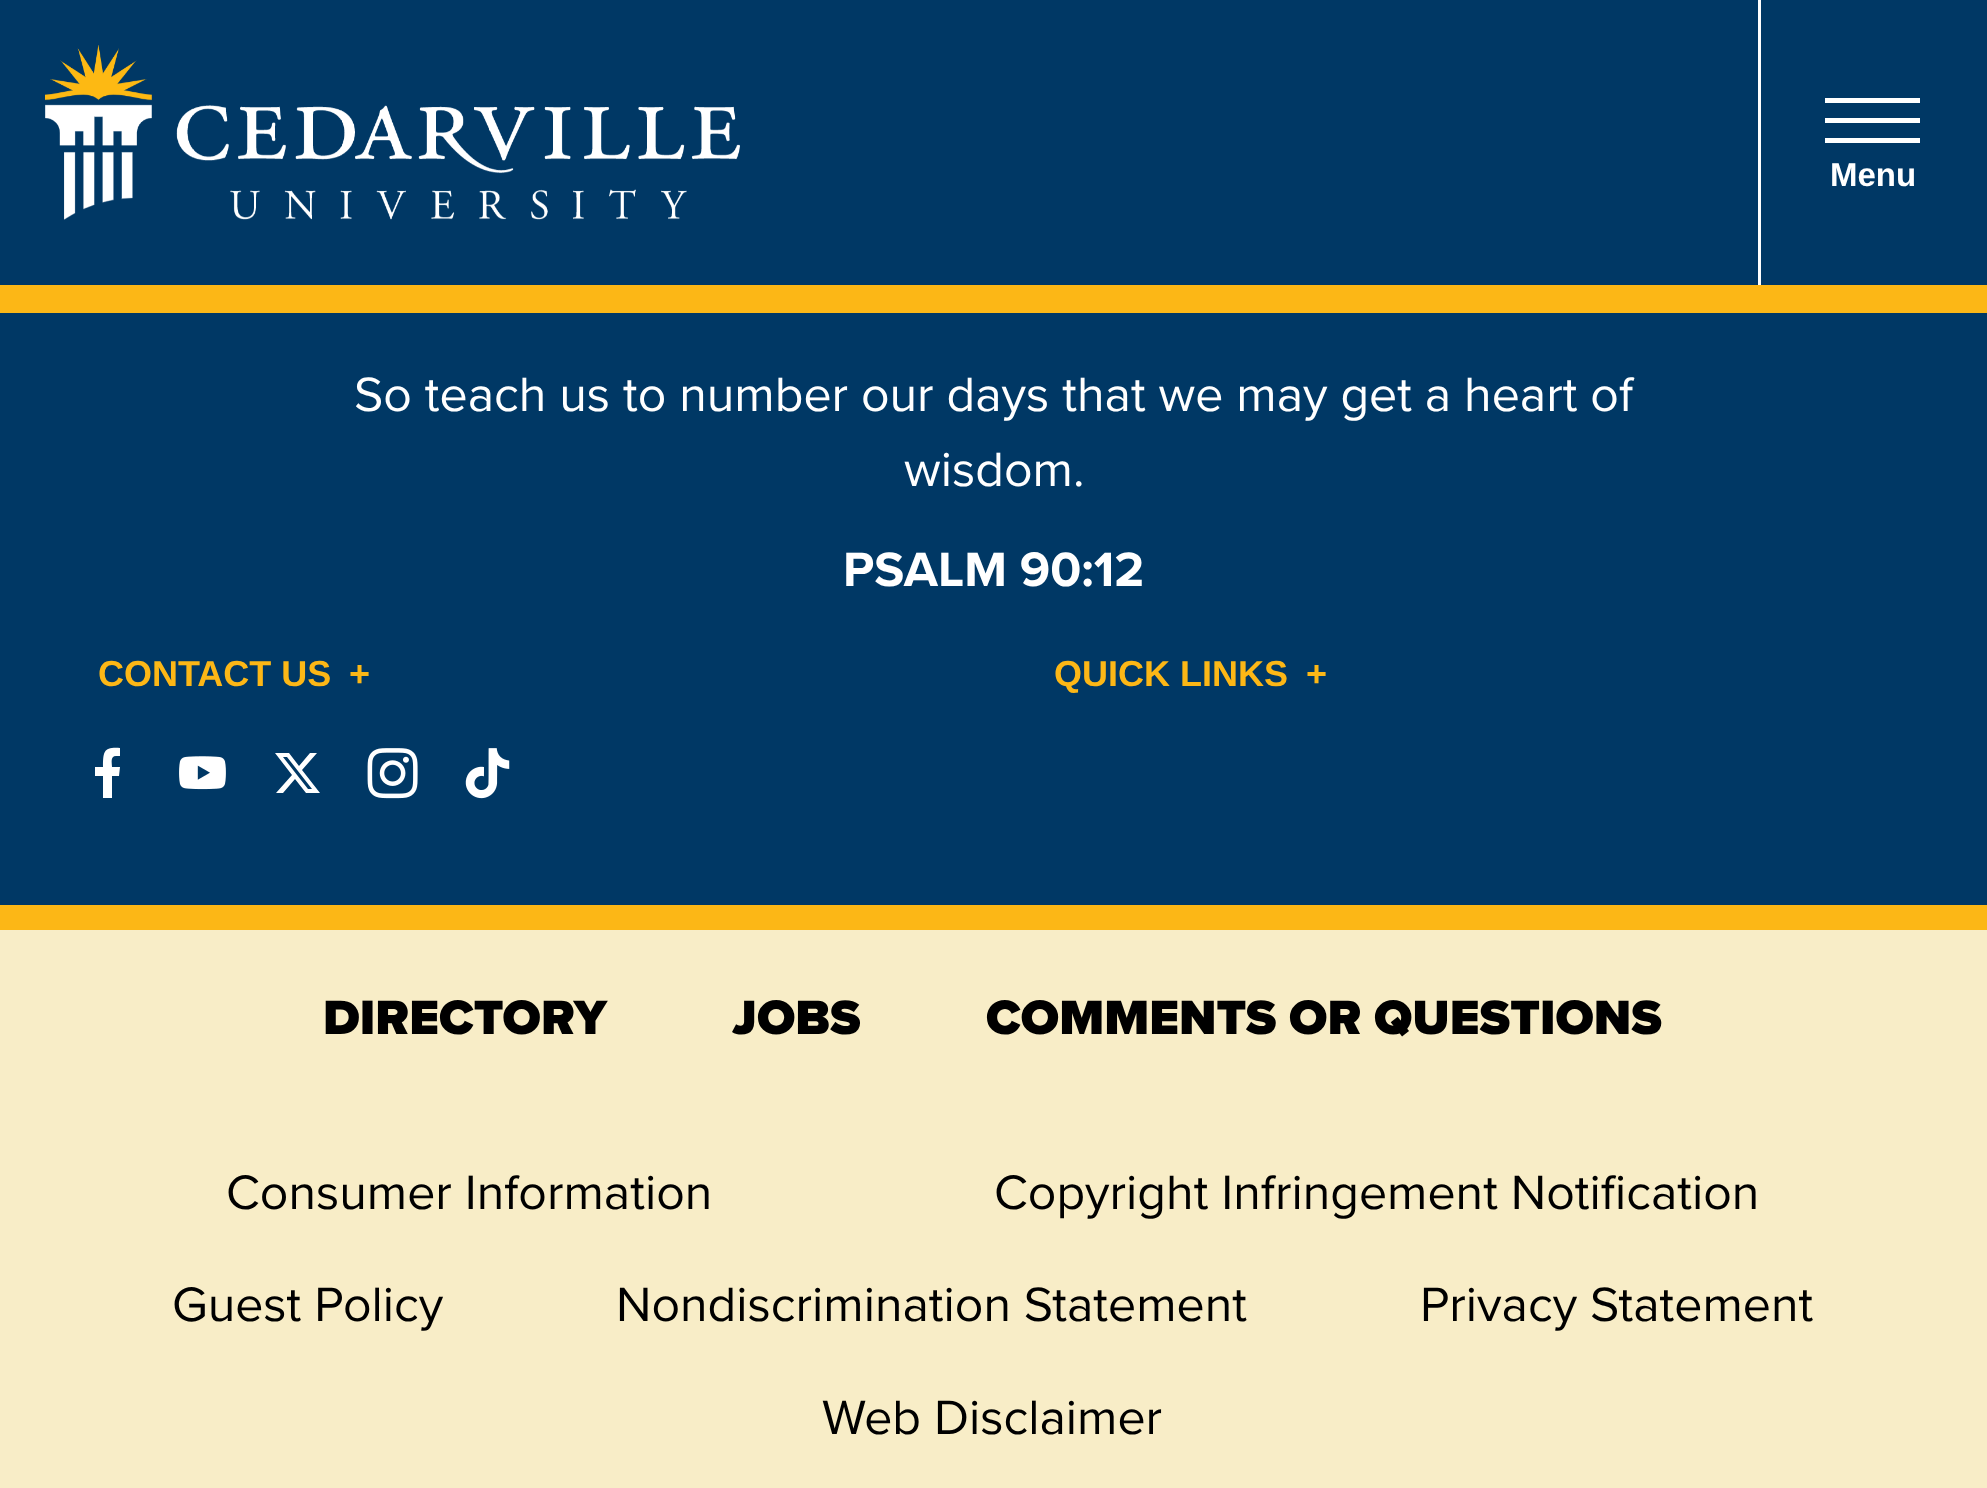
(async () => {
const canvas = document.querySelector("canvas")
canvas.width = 1987
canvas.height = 1488
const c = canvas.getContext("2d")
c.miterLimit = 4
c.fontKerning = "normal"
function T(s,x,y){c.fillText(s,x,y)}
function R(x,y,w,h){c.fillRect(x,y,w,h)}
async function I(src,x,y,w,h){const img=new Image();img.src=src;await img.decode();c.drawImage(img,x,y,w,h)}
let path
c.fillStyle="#003865"
R(0,0,1987,1488)
c.fillStyle="#fcb716"
R(0,285,1987,28)
await I("1.png",45,45,695,175)
c.fillStyle="#fff"
R(1758,0,3,285)
R(1825,98,95,5)
R(1825,118,95,5)
R(1825,138,95,5)
c.font="bold 33px Liberation Sans"
T("Menu",1830,186)
c.font="50px Proxima Nova"
T("So teach us to number our days that we may get a heart of",354,411)
T("wisdom.",904,486)
c.font="bold 50px Proxima Nova"
T("PSALM 90:12",843,586)
c.font="bold 36px Liberation Sans"
c.fillStyle="#fcb716"
T("CONTACT US",98,686)
T("+",349,686)
c.fillStyle="#fff"
path = new Path2D("M116 756h4v-8c-16-1-17 3-17 19h-8v9h8v22h9v-22h7l1-9h-8c0-4-2-11 4-11z")
c.fill(path)
await I("2.png",179,756,47,34)
path = new Path2D("M310 753h7l-15 17l18 23h-14l-11-14l-12 14h-7l16-18l-17-22h14l10 13zm-2 36h4l-25-32h-4z")
c.fill(path)
await I("3.png",367,748,51,51)
await I("4.png",465,748,45,51)
c.fillStyle="#fcb716"
T("QUICK LINKS",1054,686)
T("+",1306,686)
c.fillStyle="#f8edc7"
R(0,930,1987,558)
c.fillStyle="#fcb716"
R(0,905,1987,25)
c.font="900 50px Proxima Nova"
c.fillStyle="#000"
T("DIRECTORY",323,1034)
T("JOBS",732,1034)
T("COMMENTS OR QUESTIONS",986,1034)
c.font="50px Proxima Nova"
T("Consumer Information",226,1209)
T("Copyright Infringement Notification",994,1209)
T("Guest Policy",172,1321)
T("Nondiscrimination Statement",616,1321)
T("Privacy Statement",1420,1321)
T("Web Disclaimer",822,1434)
})()
